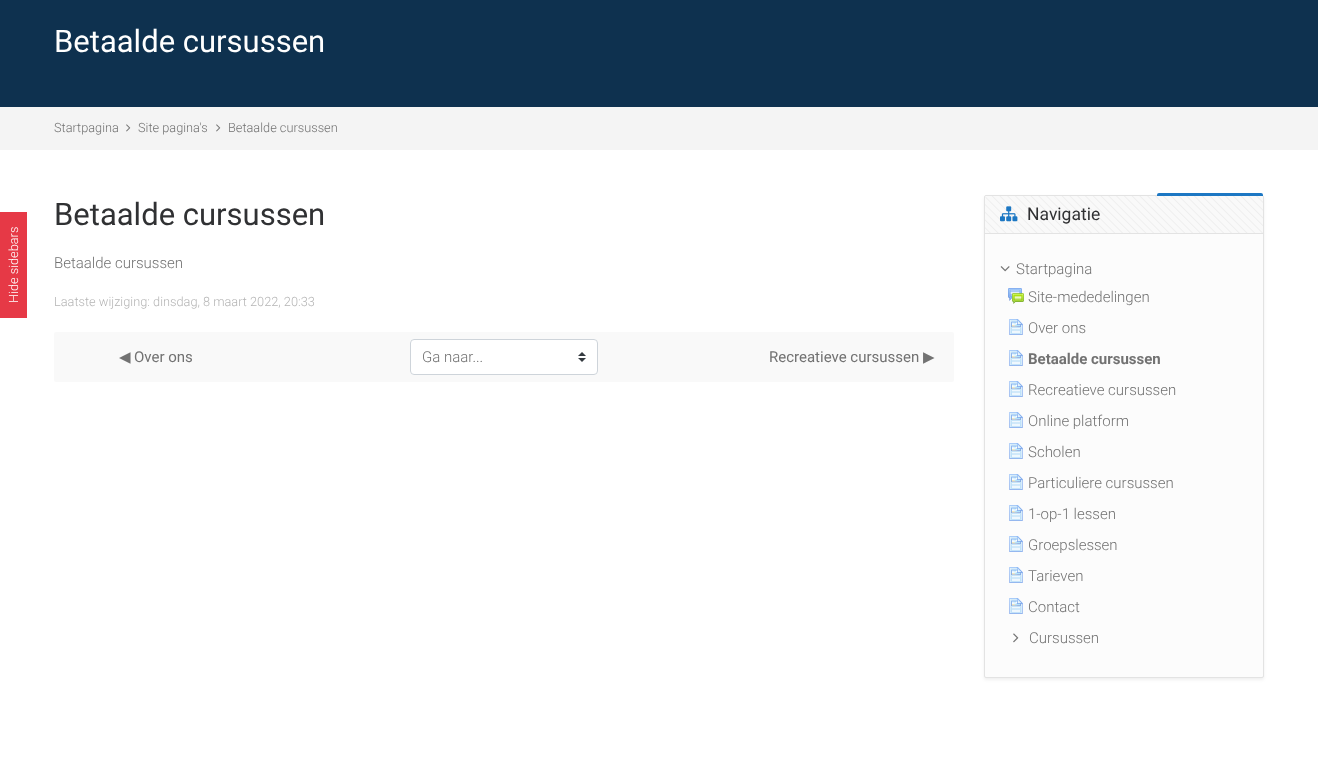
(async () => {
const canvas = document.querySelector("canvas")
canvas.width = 1318
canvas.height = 761
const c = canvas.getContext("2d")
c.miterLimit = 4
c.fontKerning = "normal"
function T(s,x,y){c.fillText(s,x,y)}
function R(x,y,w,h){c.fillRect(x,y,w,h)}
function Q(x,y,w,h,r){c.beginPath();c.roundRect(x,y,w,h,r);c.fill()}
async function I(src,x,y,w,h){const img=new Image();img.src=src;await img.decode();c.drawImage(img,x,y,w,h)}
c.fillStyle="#fff"
R(0,0,1318,761)
c.fillStyle="#e63946"
R(0,212,27,106)
c.font="300 12.75px Roboto"
c.fillStyle="#fff"
c.save()
c.translate(18,303)
c.rotate(-90 * Math.PI / 180)
c.fillText("Hide sidebars",0,0)
c.restore()
c.fillStyle="#0e314f"
R(0,0,1318,107)
c.font="31px Roboto"
c.fillStyle="#fff"
T("Betaalde cursussen",54,52)
c.fillStyle="#f4f4f4"
R(0,107,1318,43)
c.font="300 12.75px Roboto"
c.fillStyle="#727272"
T("Startpagina",54,132)
await I("1.png",126,124,5,8)
T("Site pagina's",138,132)
await I("1.png",216,124,5,8)
T("Betaalde cursussen",228,132)
c.font="31px Roboto"
c.fillStyle="#303133"
T("Betaalde cursussen",54,225)
c.font="300 15px Roboto"
c.fillStyle="#727272"
T("Betaalde cursussen",54,268)
c.font="300 12.75px Roboto"
c.fillStyle="#b5b5b5"
T("Laatste wijziging: dinsdag, 8 maart 2022, 20:33",54,306)
c.fillStyle="#f9f9f9"
Q(54,332,900,50,2)
c.font="15px DejaVu Sans"
c.fillStyle="#727272"
T("◀︎",119,362)
c.font="15px Roboto"
T("Over ons",134,362)
c.fillStyle="#fff"
Q(410,339,188,36,4)
await I("2.png",578,352,8,10)
c.beginPath()
c.roundRect(410.5,339.5,187,35,3.5)
c.strokeStyle="#ced4da"
c.stroke()
c.font="300 15px Roboto"
c.fillStyle="#727272"
T("Ga naar...",422,362)
c.font="15px Roboto"
T("Recreatieve cursussen",769,362)
c.font="15px DejaVu Sans"
T("▶︎",923,362)
c.fillStyle="#0000000f"
c.filter="blur(1.5px)"
c.beginPath()
c.roundRect(984,197,280,483,2)
c.fill()
c.filter="none"
c.fillStyle="#fcfcfc"
c.beginPath()
c.roundRect(984.5,195.5,279,482,1.5)
c.fill()
c.strokeStyle="#e3e3e3"
c.stroke()
c.fillStyle="#1c77c3"
c.beginPath()
c.roundRect(1157,193,106,3,[2,2,0,0])
c.fill()
c.fillStyle="#f9f9f9"
c.beginPath()
c.roundRect(985,196,278,38,[2,2,0,0])
c.fill()
await I("3.png",985,196,278,37)
c.fillStyle="#e3e3e3"
R(985,233,278,1)
await I("4.png",1000,206,18,16)
c.font="17.5px Roboto"
c.fillStyle="#303133"
T("Navigatie",1027,220)
await I("5.png",1000,266,10,6)
c.font="300 15px Roboto"
c.fillStyle="#727272"
T("Startpagina",1016,274)
await I("6.png",1008,288,16,16)
T("Site-mededelingen",1028,302)
await I("7.png",1009,319,14,16)
T("Over ons",1028,333)
await I("8.png",1009,350,14,16)
c.font="bold 15px Roboto"
T("Betaalde cursussen",1028,364)
await I("9.png",1009,381,14,16)
c.font="300 15px Roboto"
T("Recreatieve cursussen",1028,395)
await I("10.png",1009,412,14,16)
T("Online platform",1028,426)
await I("9.png",1009,443,14,16)
T("Scholen",1028,457)
await I("11.png",1009,474,14,16)
T("Particuliere cursussen",1028,488)
await I("12.png",1009,505,14,16)
T("1-op-1 lessen",1028,519)
await I("13.png",1009,536,14,16)
T("Groepslessen",1028,550)
await I("14.png",1009,567,14,16)
T("Tarieven",1028,581)
await I("15.png",1009,598,14,16)
T("Contact",1028,612)
await I("16.png",1013,633,6,10)
T("Cursussen",1029,643)
})()
